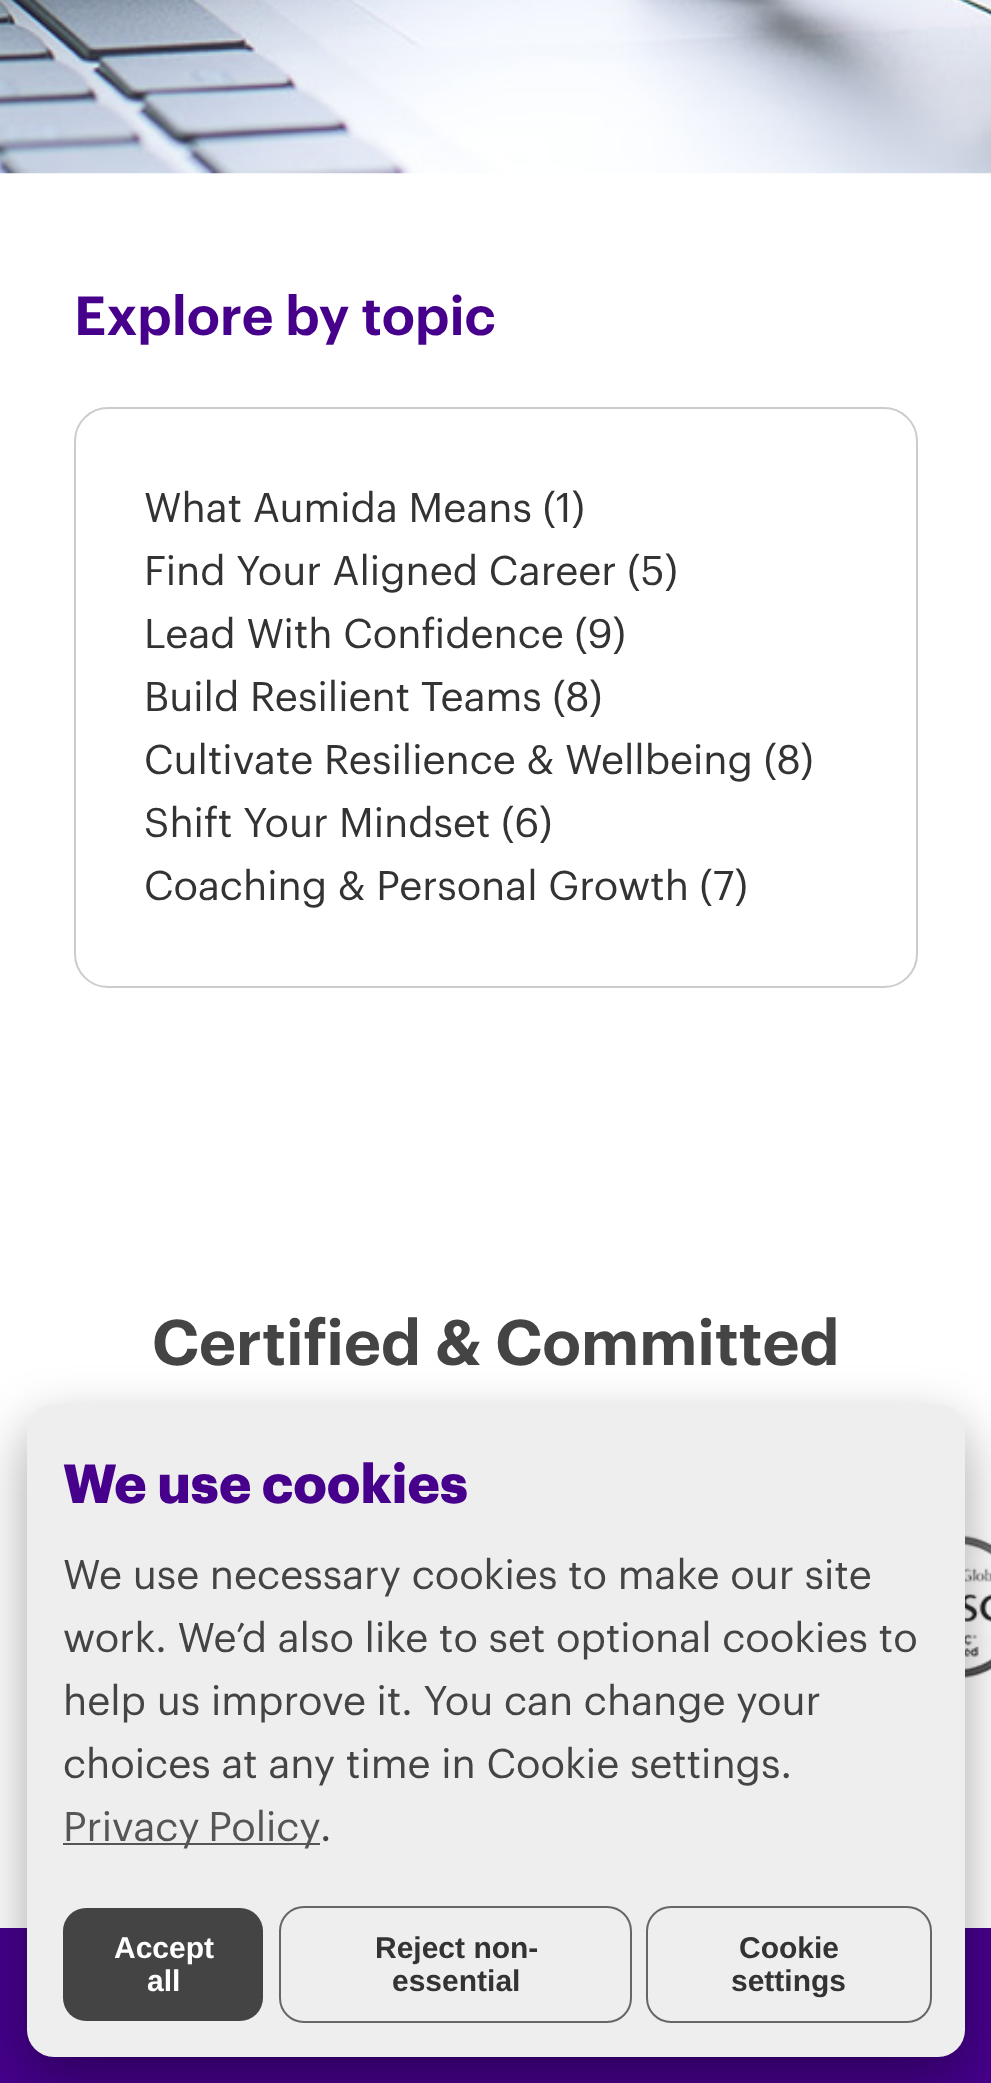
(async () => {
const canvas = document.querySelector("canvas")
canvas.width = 991
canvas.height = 2083
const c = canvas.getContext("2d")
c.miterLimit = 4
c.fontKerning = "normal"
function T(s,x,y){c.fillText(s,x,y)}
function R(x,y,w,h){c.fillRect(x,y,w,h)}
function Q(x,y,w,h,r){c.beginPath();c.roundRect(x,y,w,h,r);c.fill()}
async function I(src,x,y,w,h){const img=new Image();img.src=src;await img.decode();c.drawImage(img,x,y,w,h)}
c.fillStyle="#fff"
R(0,0,991,2083)
await I("1.png",0,0,991,174)
c.font="600 54px Graphik"
c.fillStyle="#46008c"
T("Explore by topic",74,335)
c.beginPath()
c.roundRect(75,408,842,579,33)
c.strokeStyle="#ccc"
c.lineWidth=2
c.stroke()
c.font="40.5px Graphik"
c.fillStyle="#333"
T("What Aumida Means (1)",144,522)
T("Find Your Aligned Career (5)",144,585)
T("Lead With Confidence (9)",144,648)
T("Build Resilient Teams (8)",144,711)
T("Cultivate Resilience & Wellbeing (8)",144,774)
T("Shift Your Mindset (6)",144,837)
T("Coaching & Personal Growth (7)",144,900)
c.font="600 63px Graphik"
c.fillStyle="#444"
T("Certified & Committed",152,1365)
await I("2.png",965,1534,26,145)
c.fillStyle="#46008c"
R(0,1928,991,155)
c.fillStyle="#00000059"
c.filter="blur(28px)"
c.beginPath()
c.roundRect(27,1427,938,652,27)
c.fill()
c.filter="none"
c.fillStyle="#eee"
Q(27,1404,938,653,27)
c.font="bold 54px Graphik"
c.fillStyle="#46008c"
T("We use cookies",63,1503)
c.font="40.5px Graphik"
c.fillStyle="#444"
T("We use necessary cookies to make our site",63,1589)
T("work. We’d also like to set optional cookies to",63,1652)
T("help us improve it. You can change your",63,1715)
T("choices at any time in Cookie settings.",63,1778)
c.fillStyle="#555"
R(63,1843,257,2)
c.wordSpacing="-2px"
T("Privacy Policy",63,1841)
c.wordSpacing="0px"
c.fillStyle="#444"
T(".",320,1841)
Q(63,1908,200,113,23)
c.font="bold 30px Liberation Sans"
c.fillStyle="#fff"
T("Accept",114,1958)
T("all",147,1991)
c.beginPath()
c.roundRect(280,1907,351,115,24)
c.strokeStyle="#666"
c.stroke()
c.fillStyle="#333"
T("Reject non-",375,1958)
T("essential",392,1991)
c.beginPath()
c.roundRect(647,1907,284,115,24)
c.stroke()
T("Cookie",739,1958)
T("settings",731,1991)
})()
